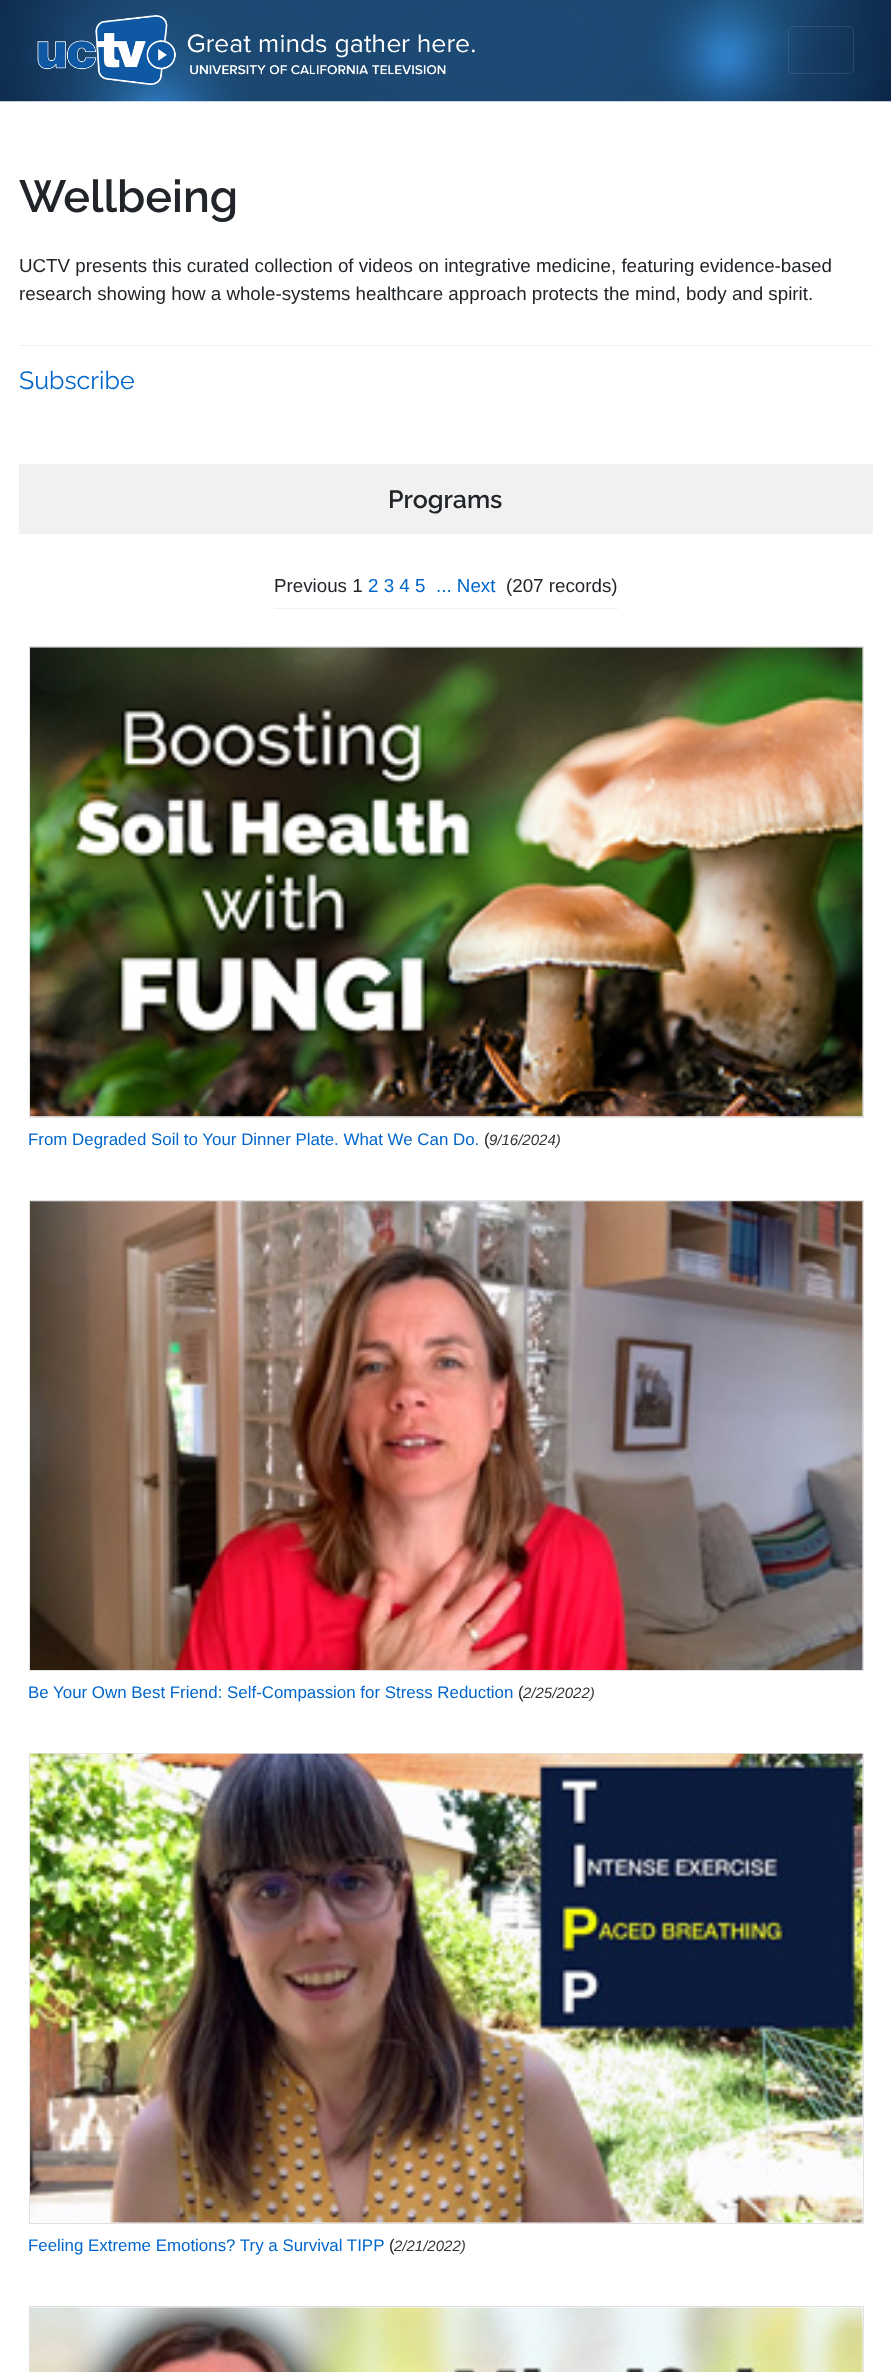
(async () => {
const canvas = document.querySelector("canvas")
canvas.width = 891
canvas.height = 2372
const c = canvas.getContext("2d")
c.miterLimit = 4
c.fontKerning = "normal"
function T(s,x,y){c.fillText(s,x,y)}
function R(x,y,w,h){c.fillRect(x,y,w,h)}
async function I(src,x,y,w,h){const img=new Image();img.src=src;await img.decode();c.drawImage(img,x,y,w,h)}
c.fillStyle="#fff"
R(0,0,891,2372)
await I("1.png",0,0,891,102)
await I("2.png",37,15,438,70)
c.beginPath()
c.roundRect(788.5,26.5,65,47,4.5)
c.strokeStyle="#ffffff1a"
c.stroke()
c.font="600 45px Raleway"
c.fillStyle="#212529"
T("Wellbeing",19,212)
c.font="18.75px Liberation Sans"
T("UCTV presents this curated collection of videos on integrative medicine, featuring evidence-based",19,272)
T("research showing how a whole-systems healthcare approach protects the mind, body and spirit.",19,300)
c.fillStyle="#f1f1f1"
R(19,345,854,1)
c.font="25px Raleway"
c.fillStyle="#06c"
T("Subscribe",19,389)
c.fillStyle="#f1f1f1"
R(19,464,854,70)
c.font="600 25px Raleway"
c.fillStyle="#212529"
T("Programs",388,508)
c.font="18.75px Liberation Sans"
T("Previous 1",274,592)
c.fillStyle="#06c"
T("2 3 4 5",368,592)
T("... Next",436,592)
c.fillStyle="#212529"
T("(207 records)",506,592)
c.fillStyle="#f1f1f1"
R(274,608,344,1)
c.strokeStyle="#e1e1e1"
c.strokeRect(29.5,646.5,834,471)
await I("3.png",30,647,833,470)
c.font="16.9px Liberation Sans"
c.fillStyle="#06c"
T("From Degraded Soil to Your Dinner Plate. What We Can Do.",28,1145)
c.fillStyle="#212529"
T("(",484,1145)
c.font="italic 15px Liberation Sans"
c.fillStyle="#333"
T("9/16/2024)",489,1145)
c.strokeRect(29.5,1200.5,834,470)
await I("4.png",30,1201,833,469)
c.font="16.9px Liberation Sans"
c.fillStyle="#06c"
T("Be Your Own Best Friend: Self-Compassion for Stress Reduction",28,1698)
c.fillStyle="#212529"
T("(",518,1698)
c.font="italic 15px Liberation Sans"
c.fillStyle="#333"
T("2/25/2022)",523,1698)
c.strokeRect(29.5,1753.5,834,470)
await I("5.png",30,1753,833,470)
c.font="16.9px Liberation Sans"
c.fillStyle="#06c"
T("Feeling Extreme Emotions? Try a Survival TIPP",28,2251)
c.fillStyle="#212529"
T("(",389,2251)
c.font="italic 15px Liberation Sans"
c.fillStyle="#333"
T("2/21/2022)",394,2251)
c.strokeRect(29.5,2306.5,834,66)
await I("6.png",30,2307,833,65)
})()
